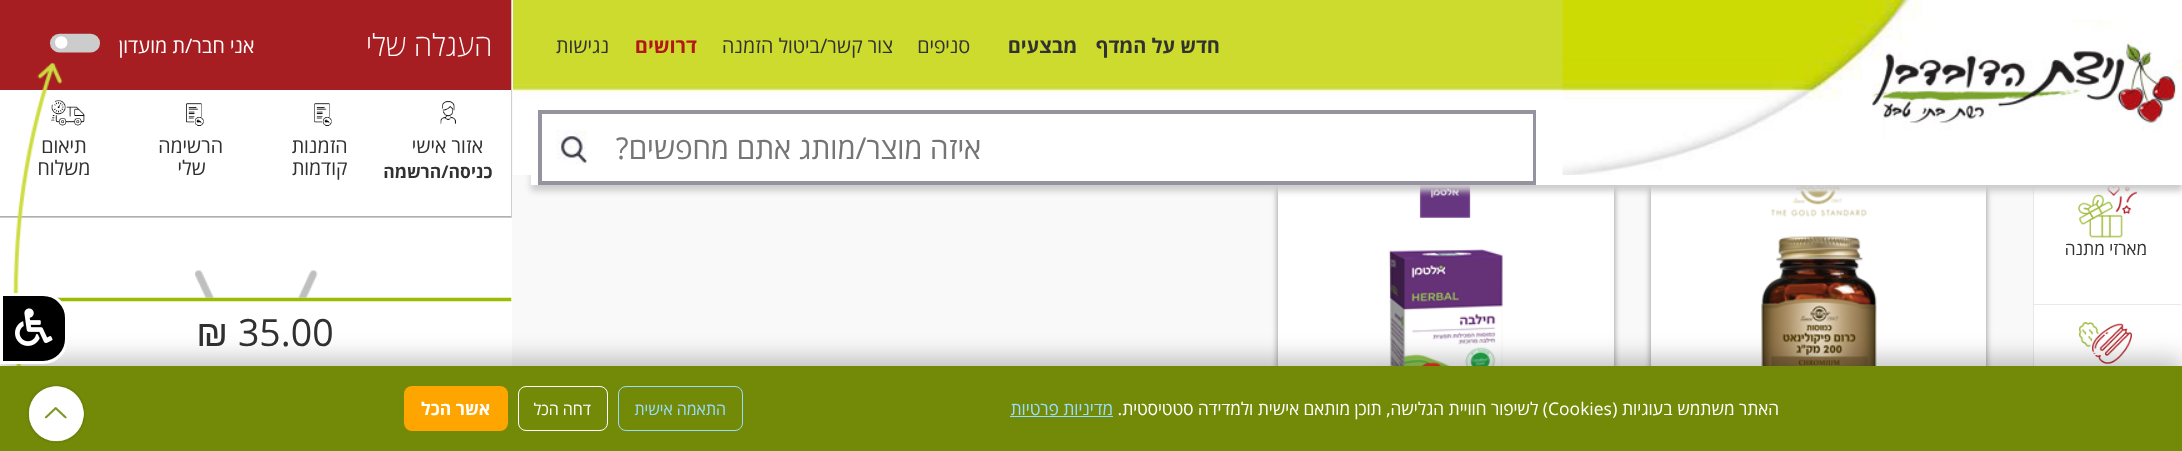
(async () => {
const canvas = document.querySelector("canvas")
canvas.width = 2182
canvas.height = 451
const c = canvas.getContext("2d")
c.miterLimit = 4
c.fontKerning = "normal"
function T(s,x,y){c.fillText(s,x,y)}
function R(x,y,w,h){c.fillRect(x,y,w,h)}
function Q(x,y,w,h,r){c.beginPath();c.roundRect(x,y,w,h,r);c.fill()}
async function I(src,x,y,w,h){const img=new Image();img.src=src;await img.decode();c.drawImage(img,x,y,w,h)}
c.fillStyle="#f9f9f9"
R(0,0,2182,451)
c.fillStyle="#fff"
R(2034,185,148,181)
c.strokeStyle="#e9e9e9"
c.strokeRect(2033.5,178.5,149,272)
await I("4.png",2078,185,60,53)
c.fillStyle="#00000070"
c.filter="blur(3px)"
c.beginPath()
c.rect(1651,38,335,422)
c.fill()
c.filter="none"
c.fillStyle="#fff"
R(1651,185,335,181)
await I("6.png",1771,185,96,32)
c.fillStyle="#00000070"
c.filter="blur(3px)"
c.beginPath()
c.rect(1278,38,336,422)
c.fill()
c.filter="none"
c.fillStyle="#fff"
R(1278,185,336,181)
await I("8.png",1419,185,52,33)
c.fillStyle="#ccc"
c.filter="blur(3px)"
c.beginPath()
c.rect(531,6,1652,185)
c.fill()
c.filter="none"
c.fillStyle="#fff"
R(531,175,1651,10)
await I("1.png",513,0,1050,175)
await I("2.png",1562,0,620,175)
c.direction="rtl"
c.font="bold 20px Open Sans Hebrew"
c.fillStyle="#313131"
T("חדש על המדף",1220,53)
T("מבצעים",1077,53)
c.font="20px Open Sans Hebrew"
T("סניפים",970,53)
T("צור קשר/ביטול הזמנה",893,53)
c.font="bold 20px Open Sans Hebrew"
c.fillStyle="#b2161a"
T("דרושים",697,53)
c.font="20px Open Sans Hebrew"
c.fillStyle="#313131"
T("נגישות",609,53)
c.strokeStyle="#9593a0"
c.lineWidth=4
c.strokeRect(540,112,994,71)
c.fillStyle="#fff"
R(1532,114,1,67)
c.font="30px Open Sans Hebrew"
c.fillStyle="#757575"
T("איזה מוצר/מותג אתם מחפשים?",981,159)
await I("3.png",556,130,31,35)
c.font="17.5px Open Sans Hebrew"
c.fillStyle="#313131"
T("מארזי מתנה",2147,255)
await I("5.png",2078,322,54,42)
c.fillStyle="#e9e9e9"
R(2034,304,147,1)
await I("7.png",1761,236,116,130)
await I("9.png",1374,249,129,117)
c.fillStyle="#ccc"
R(511,0,1,218)
await I("10.png",0,0,512,366)
c.fillStyle="#00000040"
c.filter="blur(12.5px)"
c.beginPath()
c.rect(0,359,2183,85)
c.fill()
c.filter="none"
c.fillStyle="#000"
c.beginPath()
c.roundRect(1.5,294.5,65,68,[0,23.5,23.5,0])
c.fill()
c.strokeStyle="#fff"
c.lineWidth=3
c.stroke()
await I("11.png",15,308,38,38)
c.fillStyle="#738a08"
R(0,366,2182,85)
c.fillStyle="#fff"
T("האתר משתמש בעוגיות (",1779,415)
c.direction="ltr"
T("Cookies",1548,415)
c.direction="rtl"
T(") לשיפור חוויית הגלישה, תוכן מותאם אישית ולמדידה סטטיסטית.",1548,415)
c.fillStyle="#9adcfb"
T("מדיניות פרטיות",1113,415)
R(1010,416,103,1)
c.beginPath()
c.roundRect(618.5,386.5,124,44,7.5)
c.strokeStyle="#9adcfb"
c.lineWidth=1
c.stroke()
c.font="16.25px Open Sans Hebrew"
T("התאמה אישית",726,415)
c.beginPath()
c.roundRect(518.5,386.5,89,44,7.5)
c.strokeStyle="#fff"
c.stroke()
c.fillStyle="#fff"
T("דחה הכל",591,415)
c.fillStyle="#ffa500"
Q(404,386,104,45,8)
c.font="bold 17.5px Open Sans Hebrew"
c.fillStyle="#fff"
T("אשר הכל",490,415)
await I("12.png",27,384,58,59)
})()
